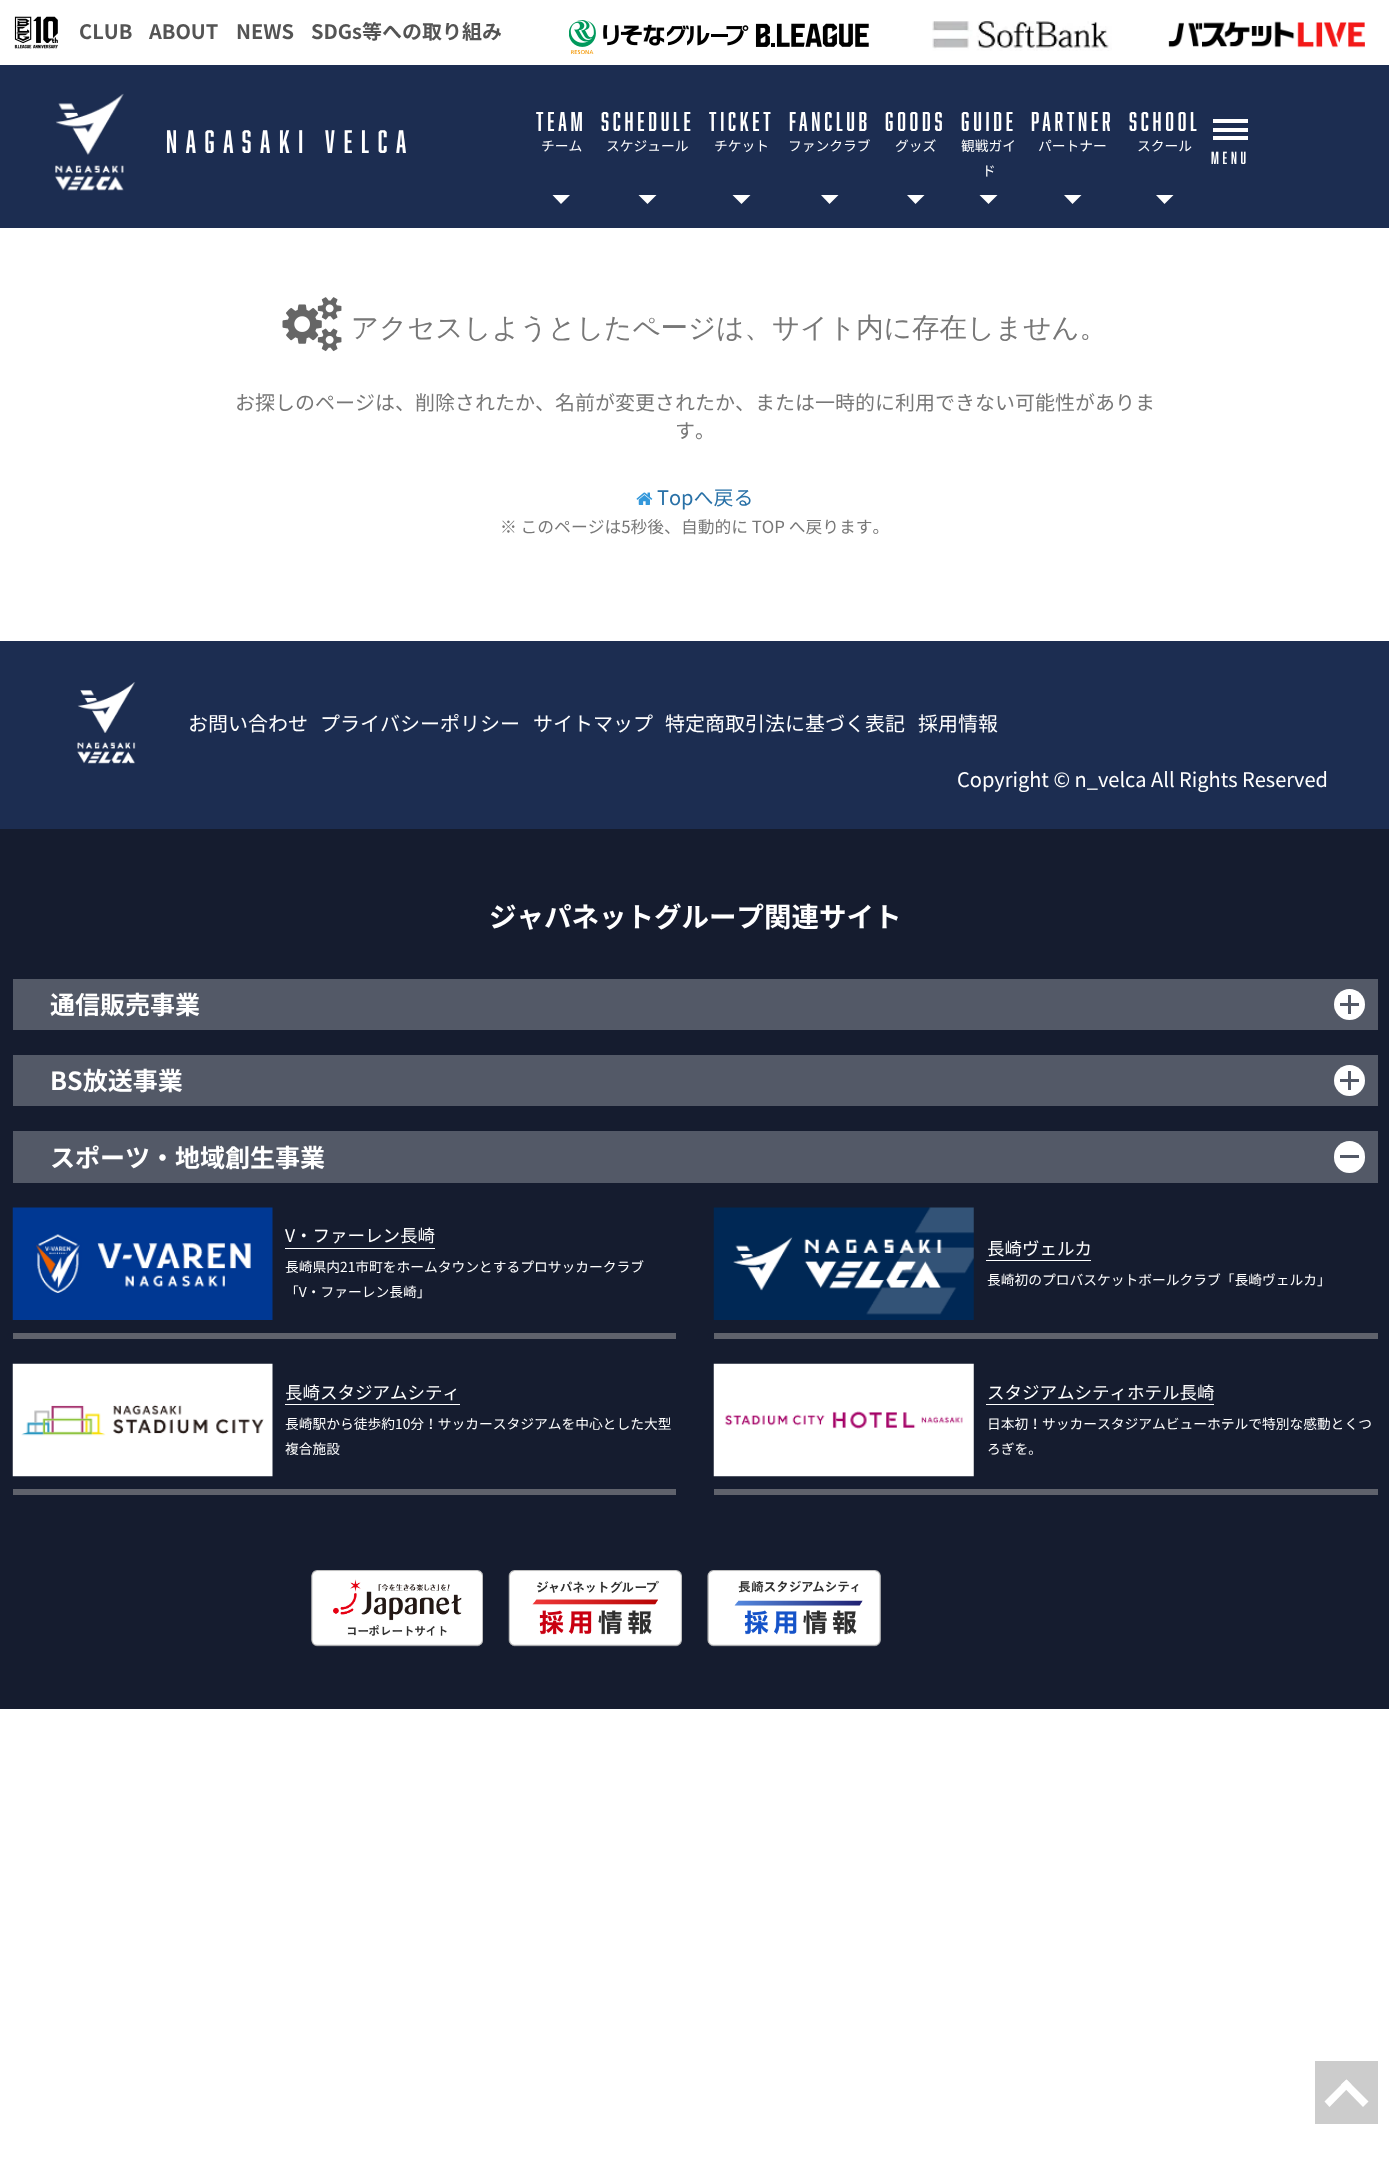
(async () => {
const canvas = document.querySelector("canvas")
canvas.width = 1389
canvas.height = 2161
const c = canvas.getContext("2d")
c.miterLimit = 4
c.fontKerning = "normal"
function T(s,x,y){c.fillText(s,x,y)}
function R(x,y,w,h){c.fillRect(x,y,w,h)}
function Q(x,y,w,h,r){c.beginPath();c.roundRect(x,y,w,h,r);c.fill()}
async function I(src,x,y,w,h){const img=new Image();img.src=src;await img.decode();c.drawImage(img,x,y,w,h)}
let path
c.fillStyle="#fff"
R(0,0,1389,2161)
await I("1.png",14,16,44,33)
c.font="bold 20px Noto Sans CJK JP"
c.fillStyle="#545454"
T("CLUB",79,39)
T("ABOUT",149,39)
T("NEWS",236,39)
T("SDGs等への取り組み",311,39)
await I("2.png",569,20,300,34)
await I("3.png",932,21,180,30)
await I("4.png",1168,21,197,27)
c.fillStyle="#1c2d51"
R(0,65,1389,163)
await I("5.png",55,93,69,98)
c.letterSpacing="8.75px"
c.font="30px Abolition"
c.fillStyle="#fff"
T("NAGASAKI VELCA",166,153)
c.letterSpacing="3.75px"
c.font="25px Abolition"
T("TEAM",536,131)
c.letterSpacing="0px"
c.font="13.75px Noto Sans CJK JP"
T("チーム",541,151)
path = new Path2D("M561 186l9 9l-9 9l-8.5-9z")
c.fill(path)
c.fillStyle="#1c2d51"
R(552,186,18,9)
c.letterSpacing="3.75px"
c.font="25px Abolition"
c.fillStyle="#fff"
T("SCHEDULE",601,131)
c.letterSpacing="0px"
c.font="13.75px Noto Sans CJK JP"
T("スケジュール",606,151)
path = new Path2D("M647.5 186l9 9l-9 9l-9-9z")
c.fill(path)
c.fillStyle="#1c2d51"
R(638,186,19,9)
c.letterSpacing="3.75px"
c.font="25px Abolition"
c.fillStyle="#fff"
T("TICKET",709,131)
c.letterSpacing="0px"
c.font="13.75px Noto Sans CJK JP"
T("チケット",714,151)
path = new Path2D("M741.5 186l9 9l-9 9l-9-9z")
c.fill(path)
c.fillStyle="#1c2d51"
R(732,186,19,9)
c.letterSpacing="3.75px"
c.font="25px Abolition"
c.fillStyle="#fff"
T("FANCLUB",789,131)
c.letterSpacing="0px"
c.font="13.75px Noto Sans CJK JP"
T("ファンクラブ",788,151)
path = new Path2D("M829.5 186l9 9l-9 9l-8.5-9z")
c.fill(path)
c.fillStyle="#1c2d51"
R(821,186,18,9)
c.letterSpacing="3.75px"
c.font="25px Abolition"
c.fillStyle="#fff"
T("GOODS",885,131)
c.letterSpacing="0px"
c.font="13.75px Noto Sans CJK JP"
T("グッズ",895,151)
path = new Path2D("M915.5 186l9 9l-9 9l-8.5-9z")
c.fill(path)
c.fillStyle="#1c2d51"
R(907,186,18,9)
c.letterSpacing="3.75px"
c.font="25px Abolition"
c.fillStyle="#fff"
T("GUIDE",961,131)
c.letterSpacing="0px"
c.font="13.75px Noto Sans CJK JP"
T("観戦ガイ",961,151)
T("ド",982,176)
path = new Path2D("M988.5 186l9 9l-9 9l-9-9z")
c.fill(path)
c.fillStyle="#1c2d51"
R(979,186,19,9)
c.letterSpacing="3.75px"
c.font="25px Abolition"
c.fillStyle="#fff"
T("PARTNER",1031,131)
c.letterSpacing="0px"
c.font="13.75px Noto Sans CJK JP"
T("パートナー",1038,151)
path = new Path2D("M1072.5 186l9 9l-9 9l-8.5-9z")
c.fill(path)
c.fillStyle="#1c2d51"
R(1064,186,18,9)
c.letterSpacing="3.75px"
c.font="25px Abolition"
c.fillStyle="#fff"
T("SCHOOL",1129,131)
c.letterSpacing="0px"
c.font="13.75px Noto Sans CJK JP"
T("スクール",1137,151)
path = new Path2D("M1164.5 186l9 9l-9 9l-8.5-9z")
c.fill(path)
c.fillStyle="#1c2d51"
R(1156,186,18,9)
c.fillStyle="#fff"
R(1213,119,35,4)
R(1213,128,35,4)
R(1213,136,35,4)
c.letterSpacing="3.75px"
c.font="16px Abolition"
T("MENU",1211,164)
await I("6.png",282,297,60,55)
c.letterSpacing="0px"
c.font="500 27.5px WenQuanYi Zen Hei"
c.fillStyle="#777"
T("アクセスしようとしたページは、サイト内に存在しません。",351,337)
c.font="20px Noto Sans CJK JP"
T("お探しのページは、削除されたか、名前が変更されたか、または一時的に利用できない可能性がありま",235,410)
T("す。",675,438)
await I("7.png",636,492,17,13)
c.fillStyle="#2971a7"
T("Topへ戻る",657,505)
c.font="16.8px Noto Sans CJK JP"
c.fillStyle="#777"
T("※ このページは5秒後、自動的に TOP へ戻ります。",500,533)
c.fillStyle="#1c2d51"
R(0,641,1389,188)
await I("8.png",77,682,59,82)
c.font="20px Noto Sans CJK JP"
c.fillStyle="#fff"
T("お問い合わせ",188,731)
T("プライバシーポリシー",320,731)
T("サイトマップ",533,731)
T("特定商取引法に基づく表記",665,731)
T("採用情報",918,731)
T("Copyright © n_velca All Rights Reserved",957,787)
c.fillStyle="#ccc"
R(1315,2061,63,63)
c.fillStyle="#fff"
path = new Path2D("M1346.5 2079.5l22 22l-5.5 5.5l-22-22.5z")
c.fill(path)
path = new Path2D("M1346.5 2079.5l5 5l-22 22.5l-5-5.5z")
c.fill(path)
c.fillStyle="#151c2f"
R(0,829,1389,880)
c.font="bold 27.5px Noto Sans CJK JP"
c.fillStyle="#fff"
T("ジャパネットグループ関連サイト",489,927)
c.fillStyle="#535967"
R(13,979,1365,51)
c.font="bold 25px Noto Sans CJK JP"
c.fillStyle="#fff"
T("通信販売事業",50,1014)
c.beginPath()
c.arc(1349.5,1004.5,15.5,0,7)
c.fill()
c.fillStyle="#535967"
R(1340,1003,19,3)
R(1348,995,3,19)
R(13,1055,1365,51)
c.fillStyle="#fff"
T("BS放送事業",50,1090)
c.beginPath()
c.arc(1349.5,1080.5,15.5,0,7)
c.fill()
c.fillStyle="#535967"
R(1340,1079,19,3)
R(1348,1071,3,19)
R(13,1131,1365,52)
c.fillStyle="#fff"
T("スポーツ・地域創生事業",50,1167)
Q(1334,1141,31,32,15.5)
c.fillStyle="#535967"
R(1340,1155,19,3)
await I("9.png",12,1207,261,113)
c.fillStyle="#fff"
R(285,1248,150,1)
c.font="17.5px Noto Sans CJK JP"
T("V・ファーレン長崎",285,1242)
c.font="13.75px Noto Sans CJK JP"
T("長崎県内21市町をホームタウンとするプロサッカークラブ",285,1272)
T("「V・ファーレン長崎」",285,1297)
c.fillStyle="#5f626c"
R(13,1333,663,6)
await I("10.png",713,1207,261,113)
c.fillStyle="#fff"
R(986,1260,105,1)
c.font="17.5px Noto Sans CJK JP"
T("長崎ヴェルカ",987,1255)
c.font="13.75px Noto Sans CJK JP"
T("長崎初のプロバスケットボールクラブ「長崎ヴェルカ」",987,1285)
c.fillStyle="#5f626c"
R(714,1333,664,6)
await I("11.png",12,1363,261,114)
c.fillStyle="#fff"
R(285,1404,175,1)
c.font="17.5px Noto Sans CJK JP"
T("長崎スタジアムシティ",285,1399)
c.font="13.75px Noto Sans CJK JP"
T("長崎駅から徒歩約10分！サッカースタジアムを中心とした大型",285,1429)
T("複合施設",285,1454)
c.fillStyle="#5f626c"
R(13,1489,663,6)
await I("12.png",713,1363,261,114)
c.fillStyle="#fff"
R(986,1404,228,1)
c.font="17.5px Noto Sans CJK JP"
T("スタジアムシティホテル長崎",987,1399)
c.font="13.75px Noto Sans CJK JP"
T("日本初！サッカースタジアムビューホテルで特別な感動とくつ",987,1429)
T("ろぎを。",987,1454)
c.fillStyle="#5f626c"
R(714,1489,664,6)
await I("13.png",311,1570,172,77)
await I("14.png",508,1570,174,77)
await I("15.png",707,1570,174,77)
})()
